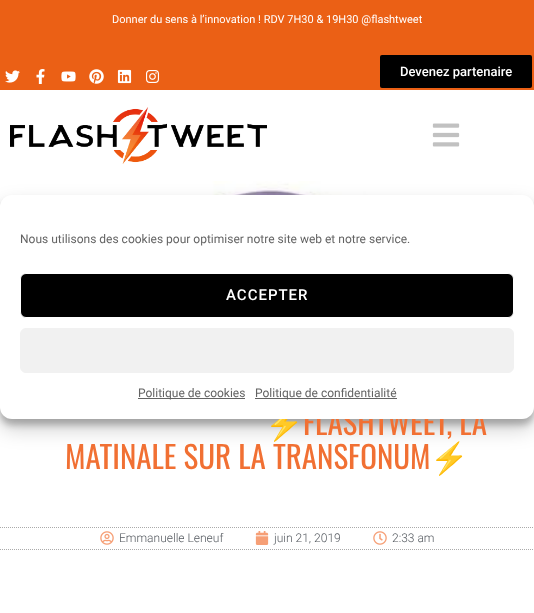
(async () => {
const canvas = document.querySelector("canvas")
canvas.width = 534
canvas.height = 613
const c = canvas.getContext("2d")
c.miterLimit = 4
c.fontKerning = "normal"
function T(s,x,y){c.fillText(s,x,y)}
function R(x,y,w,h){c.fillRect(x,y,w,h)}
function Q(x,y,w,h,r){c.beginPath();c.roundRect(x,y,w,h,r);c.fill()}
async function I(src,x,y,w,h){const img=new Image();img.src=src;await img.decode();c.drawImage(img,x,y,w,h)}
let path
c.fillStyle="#fff"
R(0,0,534,613)
c.fillStyle="#eb6015"
R(0,0,534,90)
c.font="11px Roboto"
c.fillStyle="#fff"
T("Donner du sens à l’innovation ! RDV 7H30 & 19H30 @flashtweet",112,23)
await I("1.png",5,70,15,13)
await I("2.png",36,69,9,15)
await I("3.png",61,71,15,11)
await I("4.png",89,69,15,15)
await I("5.png",117,69,15,15)
await I("6.png",146,70,14,13)
c.fillStyle="#000"
Q(380,55,152,33,2)
c.font="500 13px Roboto"
c.fillStyle="#fff"
T("Devenez partenaire",400,76)
await I("7.png",10,107,257,57)
await I("8.png",432,123,28,24)
await I("9.png",0,181,534,26)
c.fillStyle="#0000003b"
c.filter="blur(3px)"
c.beginPath()
c.roundRect(0,201,534,224,12)
c.fill()
c.filter="none"
c.fillStyle="#00000030"
c.filter="blur(10px)"
c.beginPath()
c.roundRect(0,205,534,224,12)
c.fill()
c.filter="none"
c.font="31px Noto Color Emoji"
c.fillStyle="#f17033"
T("⚡️",265,435)
c.font="31px Oswald"
T("FLASHTWEET, LA",303,435)
c.fillStyle="#fff"
Q(0,195,534,224,12)
c.font="12px Roboto"
c.fillStyle="#636363"
T("Nous utilisons des cookies pour optimiser notre site web et notre service.",20,243)
c.fillStyle="#000"
c.beginPath()
c.roundRect(20.5,273.5,493,44,5.5)
c.fill()
c.strokeStyle="#fff"
c.stroke()
c.letterSpacing="1px"
c.font="500 15px Roboto"
c.fillStyle="#fff"
T("ACCEPTER",226,300)
c.fillStyle="#f1f1f1"
c.beginPath()
c.roundRect(20.5,328.5,493,44,5.5)
c.fill()
c.strokeStyle="#f1f1f1"
c.stroke()
c.fillStyle="#636363"
R(138,398,107,1)
c.letterSpacing="0px"
c.font="12px Roboto"
T("Politique de cookies",138,397)
R(255,398,142,1)
T("Politique de confidentialité",255,397)
c.font="31px Oswald"
c.fillStyle="#f17033"
T("MATINALE SUR LA TRANSFONUM",65,469)
c.font="31px Noto Color Emoji"
T("⚡️",430,469)
path = new Path2D("M0 527.5h534")
c.strokeStyle="#aaa"
c.setLineDash([1,1])
c.stroke(path)
path = new Path2D("M0 549.5h534")
c.stroke(path)
await I("10.png",100,531,14,14)
c.font="300 12px Roboto"
c.fillStyle="#54595f"
T("Emmanuelle Leneuf",119,542)
await I("11.png",255,531,14,14)
T("juin 21, 2019",274,542)
await I("12.png",373,531,14,14)
T("2:33 am",392,542)
})()
